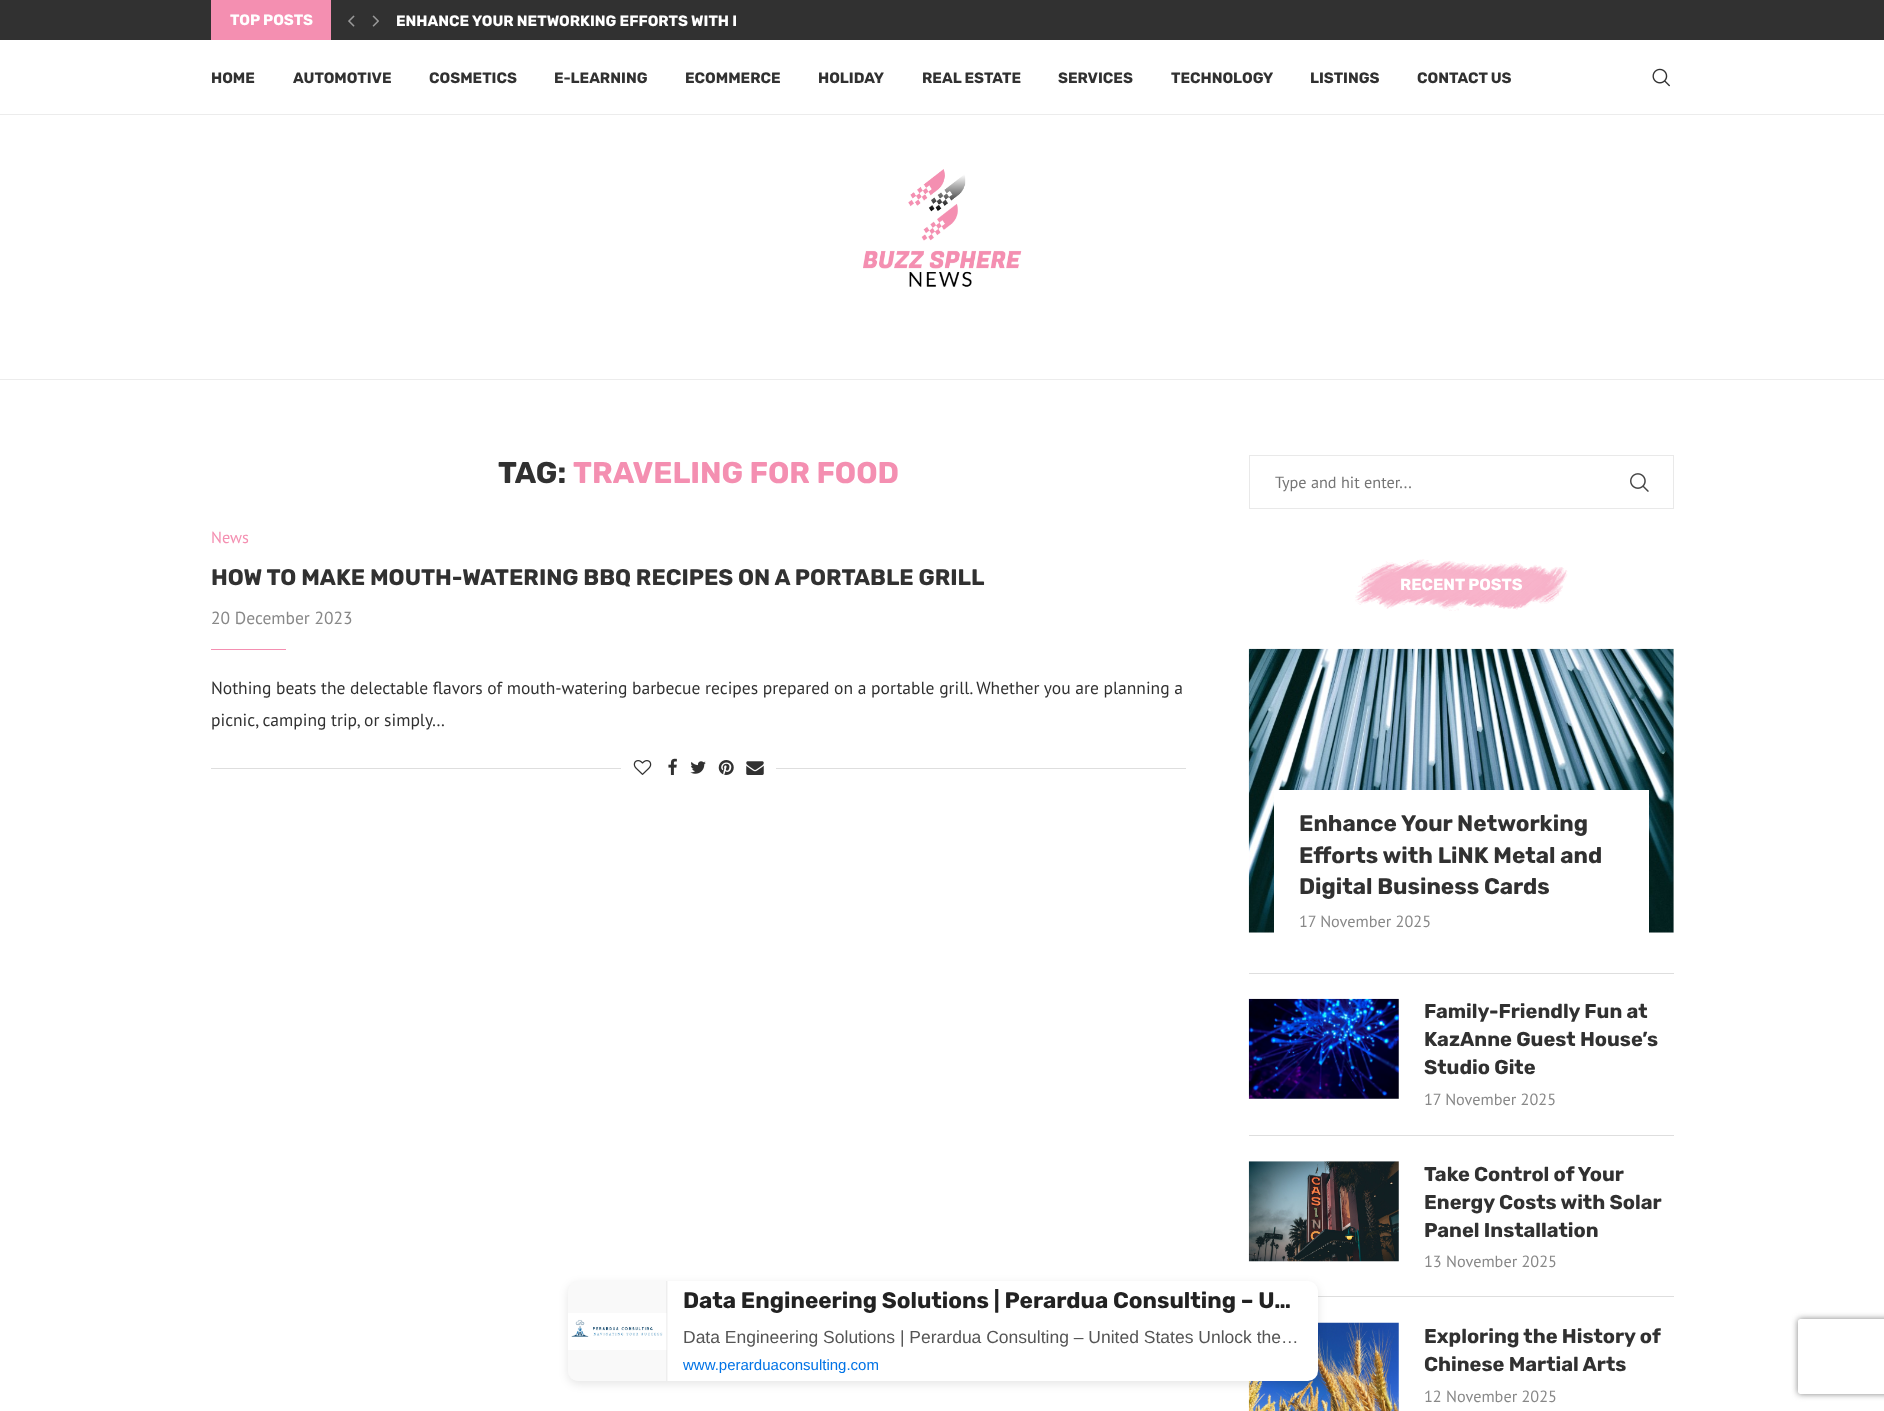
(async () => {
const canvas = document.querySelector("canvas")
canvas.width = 1884
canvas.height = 1411
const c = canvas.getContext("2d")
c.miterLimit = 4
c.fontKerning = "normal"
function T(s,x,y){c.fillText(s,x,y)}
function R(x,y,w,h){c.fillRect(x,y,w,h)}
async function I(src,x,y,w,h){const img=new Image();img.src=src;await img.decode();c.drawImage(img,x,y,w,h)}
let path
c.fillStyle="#fff"
R(0,0,1884,1411)
c.fillStyle="#313131"
R(0,0,1884,40)
c.fillStyle="#f48fb1"
R(211,0,120,40)
c.font="bold 15px Rubik"
c.fillStyle="#fff"
T("TOP POSTS",230,25)
await I("1.png",348,15,7,12)
await I("2.png",372,15,7,12)
c.save()
c.beginPath()
c.rect(396,0,340,40)
c.clip()
T("ENHANCE YOUR NETWORKING EFFORTS WITH L",396,26)
c.restore()
c.fillStyle="#ececec"
R(0,114,1884,1)
c.fillStyle="#313131"
T("HOME",211,83)
T("AUTOMOTIVE",293,83)
T("COSMETICS",429,83)
T("E-LEARNING",554,83)
T("ECOMMERCE",685,83)
T("HOLIDAY",818,83)
T("REAL ESTATE",922,83)
T("SERVICES",1058,83)
T("TECHNOLOGY",1171,83)
T("LISTINGS",1310,83)
T("CONTACT US",1417,83)
await I("3.png",1652,68,18,19)
c.fillStyle="#ececec"
R(0,379,1884,1)
await I("4.png",863,169,159,118)
c.font="bold 30px Rubik"
c.fillStyle="#313131"
T("TAG:",498,483)
c.fillStyle="#f48fb1"
T("TRAVELING FOR FOOD",573,483)
c.font="16.25px PT Sans"
T("News",211,543)
c.font="bold 22.5px Rubik"
c.fillStyle="#313131"
T("HOW TO MAKE MOUTH-WATERING BBQ RECIPES ON A PORTABLE GRILL",211,585)
c.font="17.5px PT Sans"
c.fillStyle="#888"
T("20 December 2023",211,624)
c.fillStyle="#f48fb1"
R(211,649,75,1)
c.fillStyle="#313131"
T("Nothing beats the delectable flavors of mouth-watering barbecue recipes prepared on a portable grill. Whether you are planning a",211,694)
T("picnic, camping trip, or simply…",211,726)
c.fillStyle="#dedede"
R(211,768,975,1)
c.fillStyle="#fff"
R(621,768,155,1)
await I("5.png",633,760,19,15)
await I("6.png",668,758,9,17)
await I("7.png",690,761,16,13)
await I("8.png",718,760,16,15)
await I("9.png",746,761,18,14)
c.strokeStyle="#e9e9e9"
c.strokeRect(1249.5,455.5,424,53)
c.font="16.25px PT Sans"
c.fillStyle="#757575"
T("Type and hit enter...",1275,488)
await I("10.png",1630,473,19,19)
await I("11.png",1355,559,213,52)
c.font="bold 16.25px Rubik"
c.fillStyle="#fff"
T("RECENT POSTS",1400,590)
c.fillStyle="#dedede"
R(1249,973,425,1)
c.fillStyle="#f5f5f5"
R(1249,649,425,284)
await I("12.png",1248,648,426,285)
c.fillStyle="#fff"
R(1274,790,375,143)
c.font="bold 22.5px Rubik"
c.fillStyle="#313131"
T("Enhance Your Networking",1299,831)
T("Efforts with LiNK Metal and",1299,863)
T("Digital Business Cards",1299,894)
c.font="16.25px PT Sans"
c.fillStyle="#888"
T("17 November 2025",1299,927)
c.fillStyle="#dedede"
R(1249,1135,425,1)
c.fillStyle="#f5f5f5"
R(1249,999,150,100)
await I("13.png",1248,998,151,101)
c.font="bold 20px Rubik"
c.fillStyle="#313131"
T("Family-Friendly Fun at",1424,1018)
T("KazAnne Guest House’s",1424,1046)
T("Studio Gite",1424,1074)
c.font="16.25px PT Sans"
c.fillStyle="#888"
T("17 November 2025",1424,1105)
c.fillStyle="#dedede"
R(1318,1296,356,1)
c.fillStyle="#f5f5f5"
R(1249,1161,150,100)
await I("14.png",1248,1161,151,101)
c.font="bold 20px Rubik"
c.fillStyle="#313131"
T("Take Control of Your",1424,1181)
T("Energy Costs with Solar",1424,1209)
T("Panel Installation",1424,1237)
c.font="16.25px PT Sans"
c.fillStyle="#888"
T("13 November 2025",1424,1267)
await I("15.png",1248,1322,151,89)
c.font="bold 20px Rubik"
c.fillStyle="#313131"
T("Exploring the History of",1424,1343)
T("Chinese Martial Arts",1424,1371)
c.font="16.25px PT Sans"
c.fillStyle="#888"
T("12 November 2025",1424,1402)
c.fillStyle="#0000001a"
c.filter="blur(5px)"
c.beginPath()
c.roundRect(568,1284,750,100,10)
c.fill()
c.filter="none"
c.fillStyle="#f7f7f7"
c.beginPath()
c.roundRect(568,1281,100,100,[10,0,0,10])
c.fill()
c.fillStyle="#eee"
R(666,1281,1,100)
c.fillStyle="#f9f9f9"
c.beginPath()
c.roundRect(568,1281,98,100,[10,0,0,10])
c.fill()
await I("16.png",568,1313,99,37)
c.fillStyle="#fff"
c.beginPath()
c.roundRect(668,1281,650,100,[0,10,10,0])
c.fill()
c.save()
c.beginPath()
c.rect(683,1289,620,25)
c.clip()
c.font="bold 22.5px Rubik"
c.fillStyle="#222"
T("Data Engineering Solutions | Perardua Consulting – U…",683,1308)
c.restore()
c.font="17.5px Liberation Sans"
c.fillStyle="#555"
T("Data Engineering Solutions | Perardua Consulting – United States Unlock the…",683,1343)
c.font="15px Liberation Sans"
c.fillStyle="#0073e6"
T("www.perarduaconsulting.com",683,1370)
c.save()
path = new Path2D("M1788 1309h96v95h-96zm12.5 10h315c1.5 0 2.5 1 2.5 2.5v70c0 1.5-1 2.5-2.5 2.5h-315c-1.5 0-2.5-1-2.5-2.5v-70c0-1.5 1-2.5 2.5-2.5z")
c.clip(path,"evenodd")
c.fillStyle="#808080"
c.filter="blur(3px)"
c.beginPath()
c.roundRect(1798,1319,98,75,2.5)
c.fill()
c.filter="none"
c.restore()
})()
